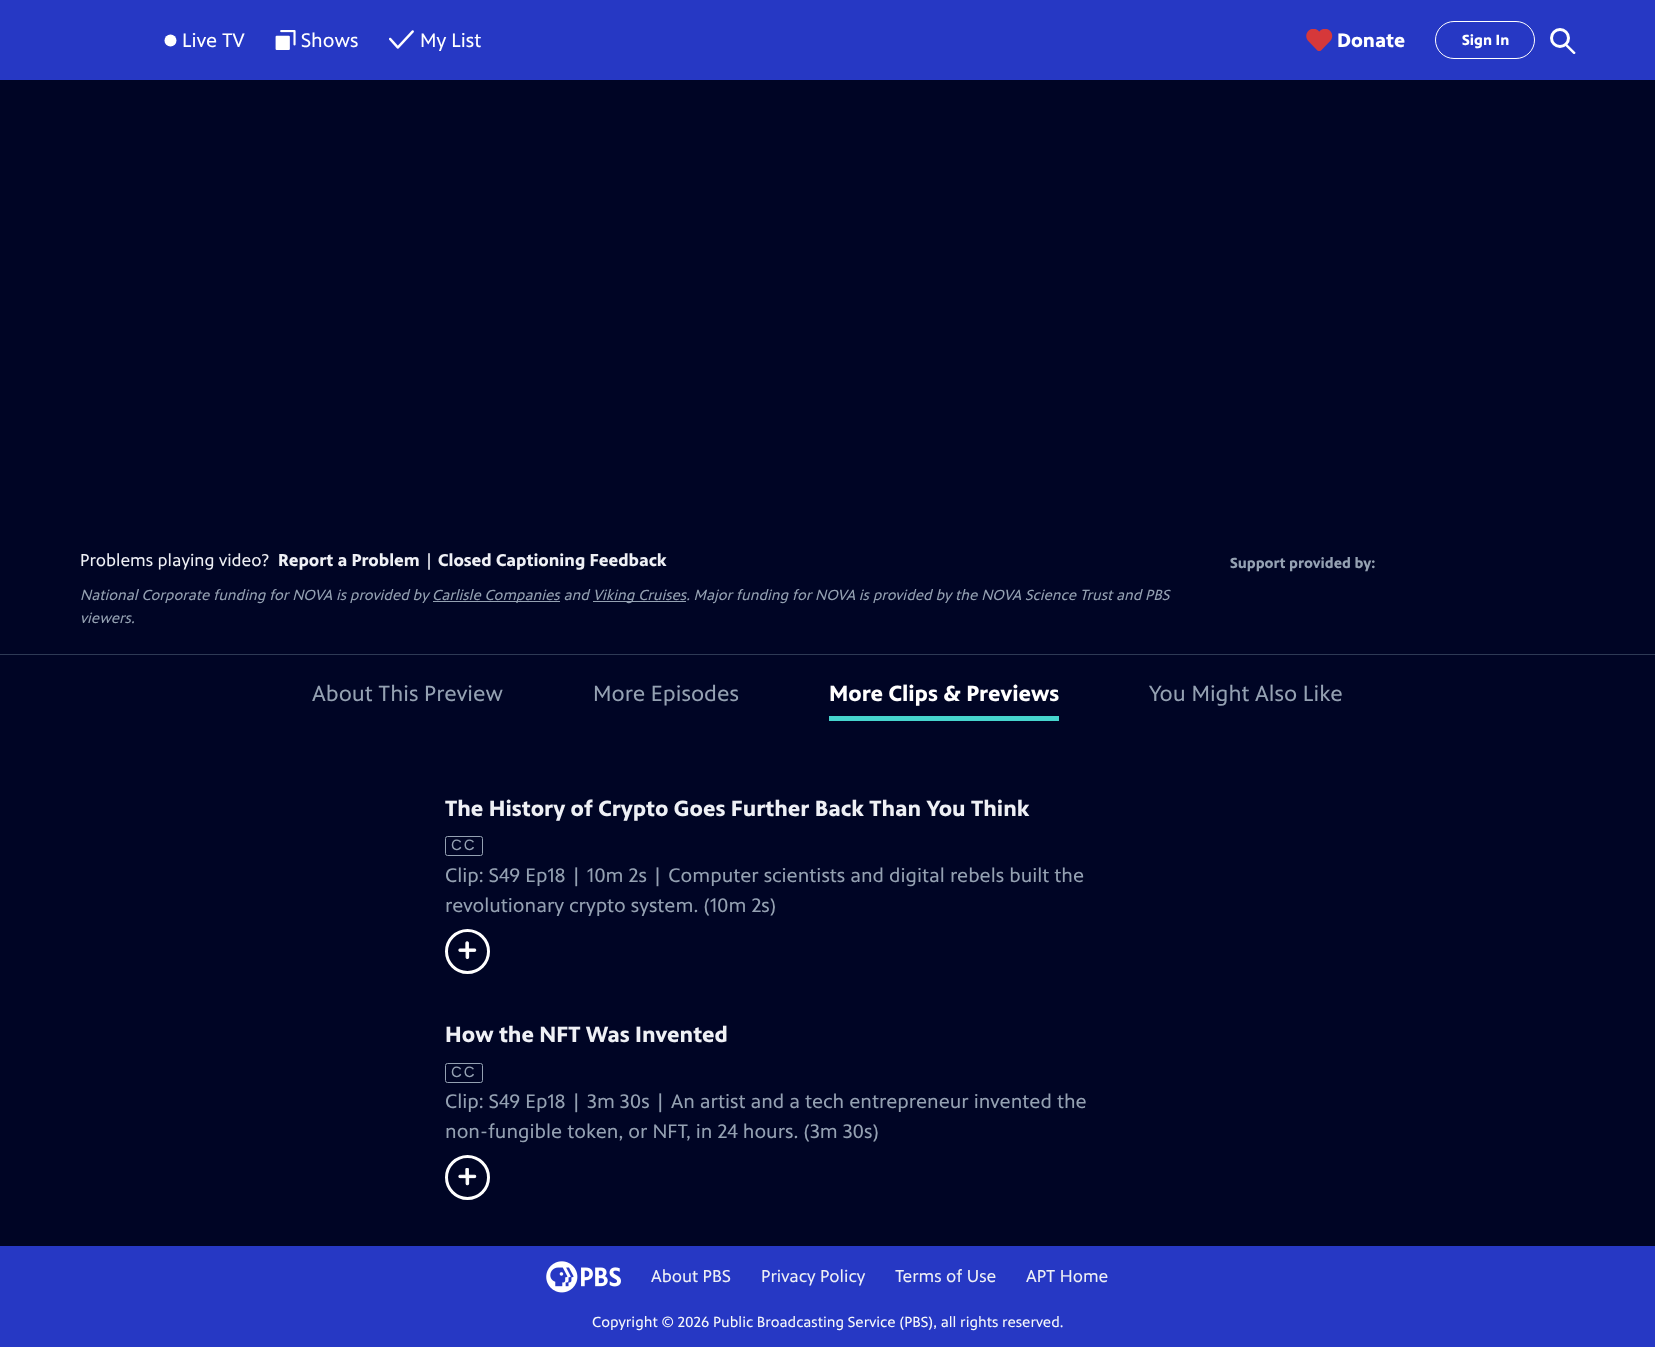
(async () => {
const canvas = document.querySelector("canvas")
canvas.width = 1655
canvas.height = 1347
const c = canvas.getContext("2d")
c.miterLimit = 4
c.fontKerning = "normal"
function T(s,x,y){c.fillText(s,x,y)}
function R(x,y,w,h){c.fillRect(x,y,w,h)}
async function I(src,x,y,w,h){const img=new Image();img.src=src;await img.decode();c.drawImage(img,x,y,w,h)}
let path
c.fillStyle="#000525"
R(0,0,1655,1347)
c.fillStyle="#2638c4"
R(0,0,1655,80)
c.fillStyle="#fff"
c.beginPath()
c.arc(170.5,40.5,6,0,7)
c.fill()
c.font="20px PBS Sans"
T("Live TV",182,47)
await I("1.png",275,30,21,20)
T("Shows",301,47)
await I("2.png",389,30,25,19)
T("My List",420,47)
await I("3.png",1306,29,27,22)
c.font="bold 20px PBS Sans"
T("Donate",1337,47)
c.beginPath()
c.roundRect(1435.5,21.5,99,37,18.5)
c.strokeStyle="#fff"
c.stroke()
c.font="bold 15px PBS Sans"
T("Sign In",1462,45)
c.beginPath()
c.arc(1560,38,8.5,0,7)
c.lineWidth=3
c.stroke()
path = new Path2D("M1573 53.5l-8.5-8.5l.5-1c1-2 4 2 4.5 2.5l6 6c0 1.5-1.5 2-2.5 1z")
c.fill(path)
c.font="17.5px PBS Sans"
c.fillStyle="#eef0f5"
T("Problems playing video?",80,566)
c.font="bold 17.5px PBS Sans"
T("Report a Problem",278,566)
c.font="17.5px PBS Sans"
T("|",424,566)
c.font="bold 17.5px PBS Sans"
T("Closed Captioning Feedback",438,566)
c.font="italic 15px PBS Sans"
c.fillStyle="#94a1b2"
T("National Corporate funding for NOVA is provided by",80,600)
R(433,601,127,1)
T("Carlisle Companies and",432,600)
R(593,601,93,1)
T("Viking Cruises. Major funding for NOVA is provided by the NOVA Science Trust and PBS",593,600)
T("viewers.",80,623)
c.font="bold 15px PBS Sans"
T("Support provided by:",1230,568)
c.fillStyle="#2e3a55"
R(0,654,1655,1)
c.font="22.5px PBS Sans"
c.fillStyle="#94a1b2"
T("About This Preview",312,701)
T("More Episodes",593,701)
c.font="bold 22.5px PBS Sans"
c.fillStyle="#fff"
T("More Clips & Previews",829,701)
c.fillStyle="#46d4cd"
R(829,716,230,5)
c.font="22.5px PBS Sans"
c.fillStyle="#94a1b2"
T("You Might Also Like",1149,701)
c.font="bold 22.5px PBS Sans"
c.fillStyle="#eef0f5"
T("The History of Crypto Goes Further Back Than You Think",445,816)
c.beginPath()
c.roundRect(445.5,836.5,37,19,2)
c.strokeStyle="#94a1b2"
c.lineWidth=1
c.stroke()
c.letterSpacing="2px"
c.font="15px Liberation Sans"
c.fillStyle="#94a1b2"
T("CC",451,850)
c.letterSpacing="0px"
c.font="20px PBS Sans"
T("Clip: S49 Ep18 | 10m 2s | Computer scientists and digital rebels built the",445,882)
T("revolutionary crypto system. (10m 2s)",445,912)
c.beginPath()
c.arc(467.5,951.5,21,0,7)
c.strokeStyle="#fff"
c.lineWidth=3
c.stroke()
await I("4.png",458,941,19,18)
c.font="bold 22.5px PBS Sans"
c.fillStyle="#eef0f5"
T("How the NFT Was Invented",445,1042)
c.beginPath()
c.roundRect(445.5,1063.5,37,19,2)
c.strokeStyle="#94a1b2"
c.lineWidth=1
c.stroke()
c.letterSpacing="2px"
c.font="15px Liberation Sans"
c.fillStyle="#94a1b2"
T("CC",451,1077)
c.letterSpacing="0px"
c.font="20px PBS Sans"
T("Clip: S49 Ep18 | 3m 30s | An artist and a tech entrepreneur invented the",445,1108)
T("non-fungible token, or NFT, in 24 hours. (3m 30s)",445,1138)
c.beginPath()
c.arc(467.5,1177.5,21,0,7)
c.strokeStyle="#fff"
c.lineWidth=3
c.stroke()
await I("5.png",458,1168,19,18)
c.fillStyle="#2638c4"
R(0,1246,1655,101)
await I("6.png",546,1261,75,32)
c.font="17.5px PBS Sans"
c.fillStyle="#eef0f5"
T("About PBS",651,1282)
T("Privacy Policy",761,1282)
T("Terms of Use",895,1282)
T("APT Home",1026,1282)
c.font="15px PBS Sans"
c.fillStyle="#f6f8fa"
T("Copyright © 2026 Public Broadcasting Service (PBS), all rights reserved.",592,1327)
})()
